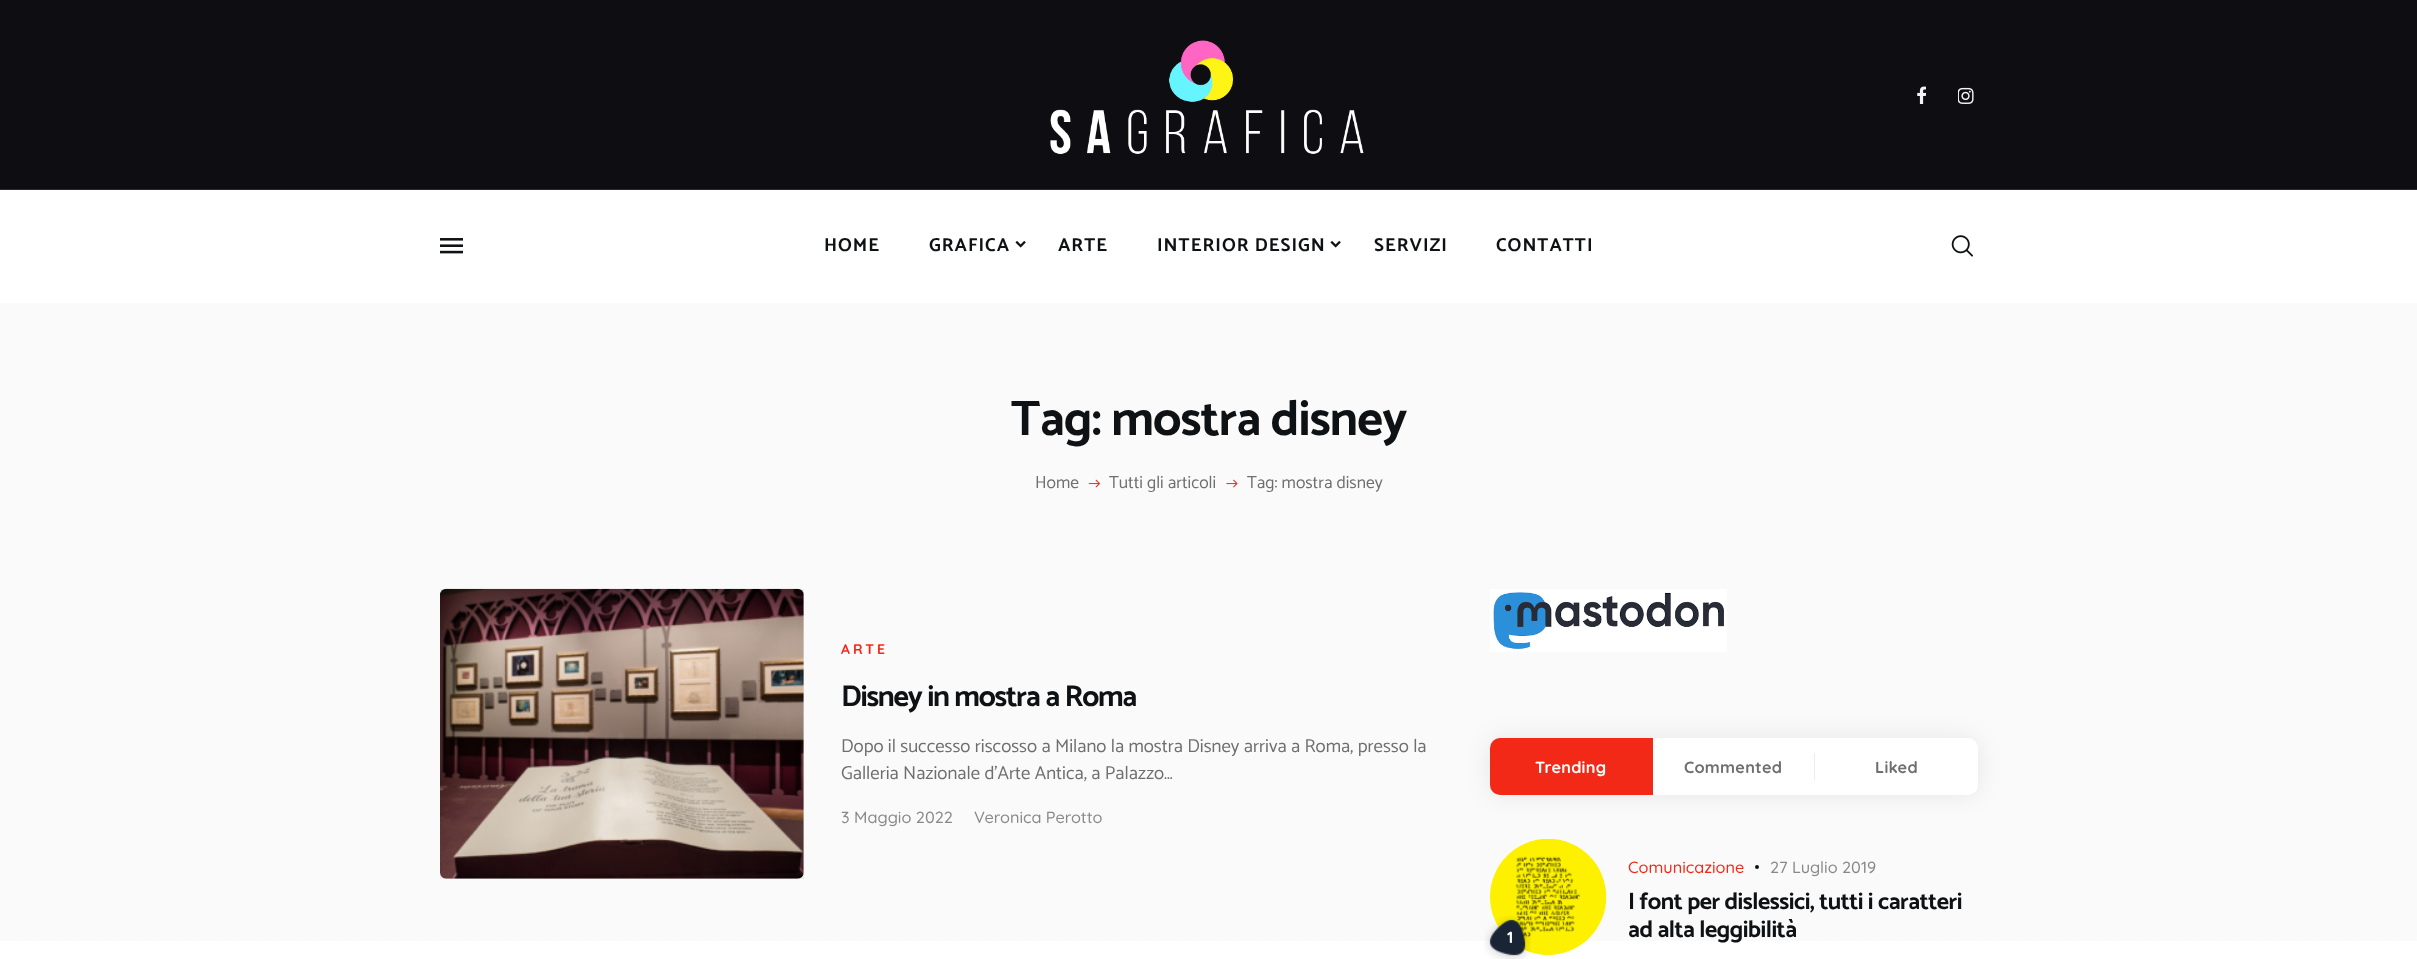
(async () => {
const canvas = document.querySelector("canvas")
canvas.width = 2417
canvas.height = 959
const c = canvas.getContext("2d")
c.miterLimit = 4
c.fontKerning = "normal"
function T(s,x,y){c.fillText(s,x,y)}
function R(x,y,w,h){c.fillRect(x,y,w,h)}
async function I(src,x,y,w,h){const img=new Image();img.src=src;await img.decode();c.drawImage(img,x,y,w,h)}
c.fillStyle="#fff"
R(0,0,2417,959)
c.fillStyle="#0e0d12"
R(0,0,2417,189)
c.fillStyle="#2e2c33"
R(0,189,2417,1)
await I("1.png",1050,40,314,114)
await I("2.png",1917,86,9,18)
await I("3.png",1958,87,16,17)
await I("4.png",440,238,23,16)
c.letterSpacing="1px"
c.font="bold 18.75px Catamaran"
c.fillStyle="#0f1214"
T("HOME",824,251)
T("GRAFICA",929,251)
await I("5.png",1015,241,11,7)
T("ARTE",1058,251)
T("INTERIOR DESIGN",1157,251)
await I("5.png",1330,241,11,7)
T("SERVIZI",1374,251)
T("CONTATTI",1496,251)
await I("6.png",1951,235,22,22)
await I("9.png",0,303,2417,638)
c.letterSpacing="-0.9px"
c.font="bold 50px Catamaran"
T("Tag: mostra disney",1011,435)
c.letterSpacing="0px"
c.font="17.5px Catamaran"
c.fillStyle="#6f6f6f"
T("Home",1035,488)
await I("7.png",1088,479,12,9)
T("Tutti gli articoli",1109,488)
await I("8.png",1226,479,12,9)
T("Tag: mostra disney",1247,488)
await I("10.png",440,588,364,291)
c.fillStyle="#0000000d"
R(440,589,364,290)
c.letterSpacing="3px"
c.font="bold 14px Quicksand"
c.fillStyle="#f32918"
T("ARTE",841,654)
c.letterSpacing="-1.25px"
c.font="bold 30px Catamaran"
c.fillStyle="#0f1214"
T("Disney in mostra a Roma",841,706)
c.letterSpacing="0px"
c.font="18.75px Catamaran"
c.fillStyle="#6f6f6f"
T("Dopo il successo riscosso a Milano la mostra Disney arriva a Roma, presso la",841,752)
T("Galleria Nazionale d’Arte Antica, a Palazzo…",841,779)
c.font="500 16.25px Quicksand"
c.fillStyle="#898989"
T("3 Maggio 2022",841,823)
T("Veronica Perotto",974,823)
await I("11.png",1490,589,237,63)
c.fillStyle="#00000014"
c.filter="blur(12.5px)"
c.beginPath()
c.roundRect(1490,738,488,57,10)
c.fill()
c.filter="none"
c.fillStyle="#f32918"
c.beginPath()
c.roundRect(1490,738,163,57,[10,0,0,10])
c.fill()
c.letterSpacing="0.25px"
c.font="bold 16.25px Quicksand"
c.fillStyle="#fff"
T("Trending",1535,773)
R(1653,738,162,57)
c.fillStyle="#6f6f6f"
T("Commented",1684,773)
c.fillStyle="#ededed"
R(1814,753,1,27)
c.fillStyle="#fff"
c.beginPath()
c.roundRect(1815,738,163,57,[0,10,10,0])
c.fill()
c.fillStyle="#6f6f6f"
T("Liked",1875,773)
await I("12.png",1490,838,117,117)
await I("13.png",1484,916,47,43)
c.letterSpacing="0px"
c.fillStyle="#fff"
T("1",1507,943)
c.font="500 16.25px Quicksand"
c.fillStyle="#f32918"
T("Comunicazione",1628,873)
c.fillStyle="#0f1214"
c.beginPath()
c.arc(1757,867,2,0,7)
c.fill()
c.fillStyle="#898989"
T("27 Luglio 2019",1770,873)
c.letterSpacing="-0.5px"
c.font="bold 23.75px Catamaran"
c.fillStyle="#0f1214"
T("I font per dislessici, tutti i caratteri",1628,909)
T("ad alta leggibilità",1628,937)
})()
